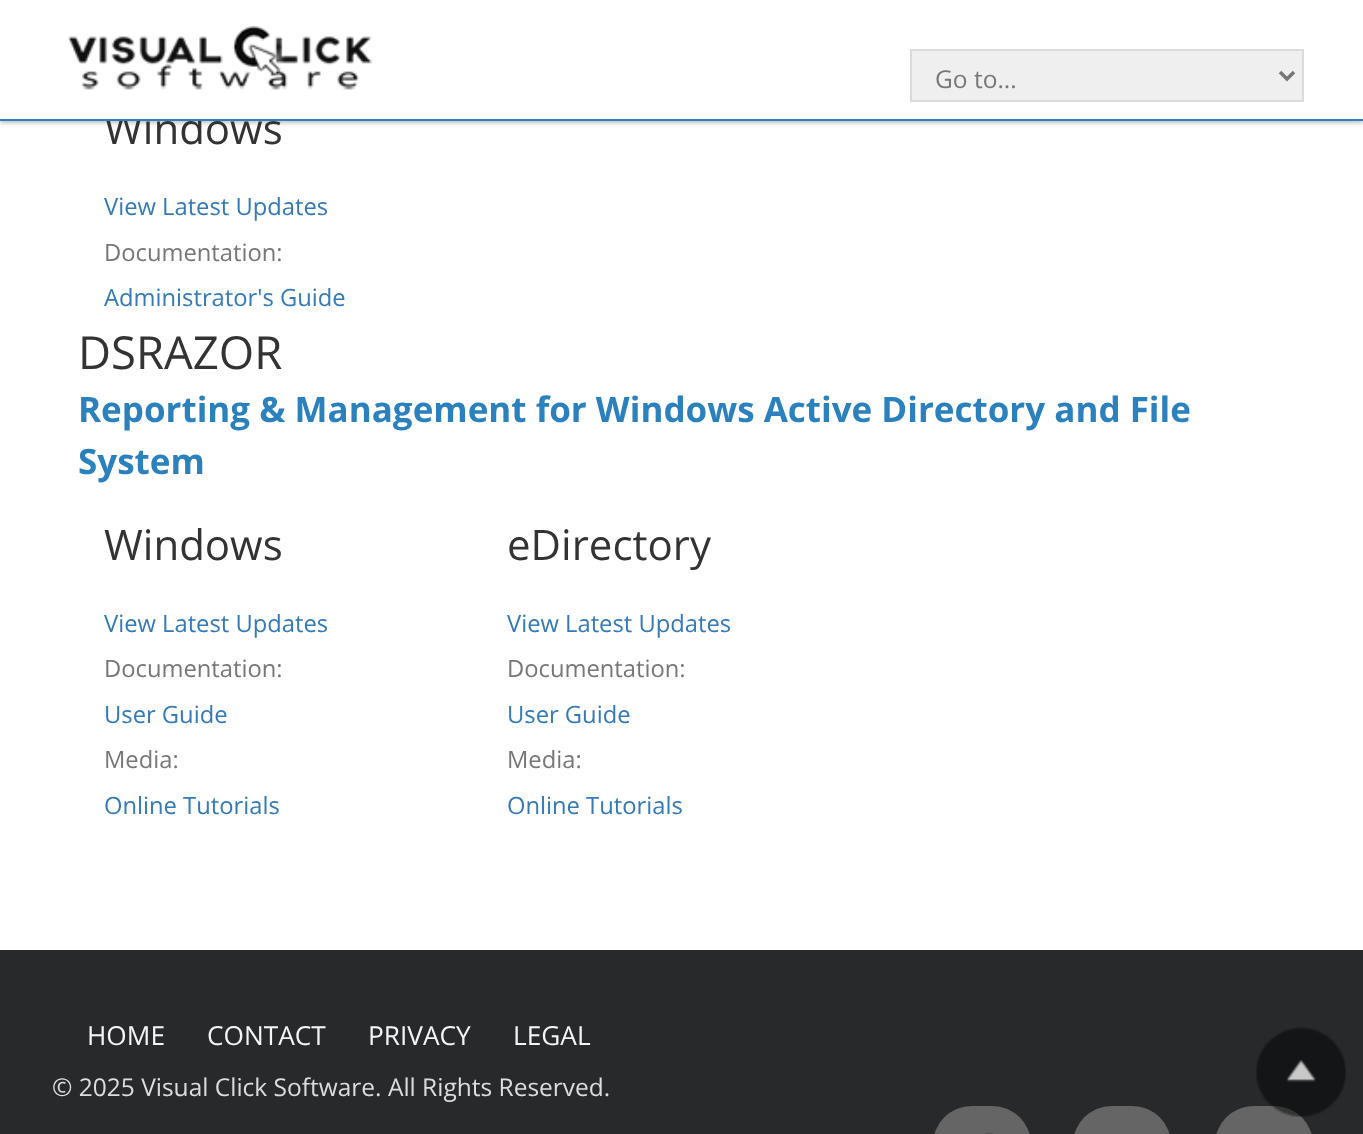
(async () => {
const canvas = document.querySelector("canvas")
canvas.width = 1363
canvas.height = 1134
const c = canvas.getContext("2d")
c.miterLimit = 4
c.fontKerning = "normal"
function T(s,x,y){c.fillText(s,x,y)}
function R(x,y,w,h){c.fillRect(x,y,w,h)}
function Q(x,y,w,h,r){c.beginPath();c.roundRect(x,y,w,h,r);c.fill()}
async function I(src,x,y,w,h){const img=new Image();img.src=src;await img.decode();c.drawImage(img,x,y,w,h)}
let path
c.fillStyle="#fff"
R(0,0,1363,1134)
c.fillStyle="#00000040"
c.filter="blur(2px)"
c.beginPath()
c.rect(0,2,1363,121)
c.fill()
c.filter="none"
c.font="42px Open Sans"
c.fillStyle="#333"
T("Windows",104,144)
c.fillStyle="#fff"
R(0,0,1363,119)
c.fillStyle="#2a81be"
R(0,119,1363,2)
await I("1.png",68,25,305,65)
c.fillStyle="#efefef"
c.beginPath()
c.rect(911,50,392,51)
c.fill()
c.strokeStyle="#dbdbdb"
c.lineWidth=2
c.stroke()
path = new Path2D("M1280 72l7 7l7-7")
c.strokeStyle="#777"
c.lineWidth=3.5
c.stroke(path)
c.font="24.5px Open Sans"
c.fillStyle="#777"
T("Go to...",935,88)
c.font="23.75px Open Sans"
c.fillStyle="#337ab7"
T("View Latest Updates",104,215)
c.fillStyle="#777"
T("Documentation:",104,261)
c.fillStyle="#337ab7"
T("Administrator's Guide",104,306)
c.font="45.5px Open Sans"
c.fillStyle="#333"
T("DSRAZOR",78,369)
c.font="bold 35px Open Sans"
c.fillStyle="#2a81be"
T("Reporting & Management for Windows Active Directory and File",78,422)
T("System",78,474)
c.font="42px Open Sans"
c.fillStyle="#333"
T("Windows",104,560)
c.font="23.75px Open Sans"
c.fillStyle="#337ab7"
T("View Latest Updates",104,632)
c.fillStyle="#777"
T("Documentation:",104,677)
c.fillStyle="#337ab7"
T("User Guide",104,723)
c.fillStyle="#777"
T("Media:",104,768)
c.fillStyle="#337ab7"
T("Online Tutorials",104,814)
c.font="42px Open Sans"
c.fillStyle="#333"
T("eDirectory",507,560)
c.font="23.75px Open Sans"
c.fillStyle="#337ab7"
T("View Latest Updates",507,632)
c.fillStyle="#777"
T("Documentation:",507,677)
c.fillStyle="#337ab7"
T("User Guide",507,723)
c.fillStyle="#777"
T("Media:",507,768)
c.fillStyle="#337ab7"
T("Online Tutorials",507,814)
c.fillStyle="#27292b"
R(0,950,1363,184)
c.font="26.25px Open Sans"
c.fillStyle="#f5f5f5"
T("HOME",87,1045)
T("CONTACT",207,1045)
T("PRIVACY",368,1045)
T("LEGAL",513,1045)
c.font="24.5px Open Sans"
c.fillStyle="#ddd"
T("© 2025 Visual Click Software. All Rights Reserved.",52,1096)
c.fillStyle="#656565"
Q(933,1106,98,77,49)
await I("2.png",985,1133,9,1)
Q(1073,1106,98,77,49)
Q(1215,1106,98,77,49)
await I("3.png",1256,1027,90,90)
})()
